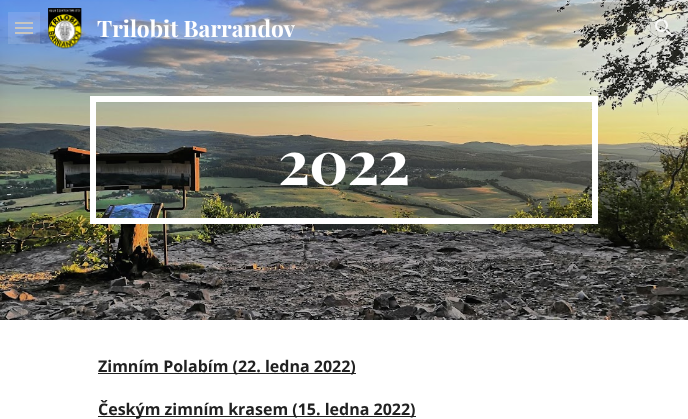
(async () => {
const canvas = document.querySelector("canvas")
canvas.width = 688
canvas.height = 419
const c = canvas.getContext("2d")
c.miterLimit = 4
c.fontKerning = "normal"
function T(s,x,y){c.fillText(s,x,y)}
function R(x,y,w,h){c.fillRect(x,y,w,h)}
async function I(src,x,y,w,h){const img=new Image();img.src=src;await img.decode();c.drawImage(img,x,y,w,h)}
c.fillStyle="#fff"
R(0,0,688,419)
await I("3.png",0,0,688,320)
c.fillStyle="#c0bdb8"
R(15,22,18,2)
R(15,27,18,2)
R(15,32,18,2)
c.fillStyle="#ffffff1f"
R(8,12,32,32)
await I("1.png",48,8,34,41)
c.font="bold 22.75px Playfair Display"
c.fillStyle="#fff"
T("Trilobit Barrandov",97,37)
await I("2.png",655,19,17,18)
c.strokeStyle="#fff"
c.lineWidth=6
c.strokeRect(93,99,502,122)
c.letterSpacing="-1px"
c.font="bold 61px Playfair Display"
T("2022",278,185)
c.fillStyle="#212121"
R(98,373,258,1)
c.letterSpacing="0px"
c.font="bold 16px Open Sans"
T("Zimním Polabím (22. ledna 2022)",98,372)
R(98,416,318,1)
T("Českým zimním krasem (15. ledna 2022)",98,415)
})()
